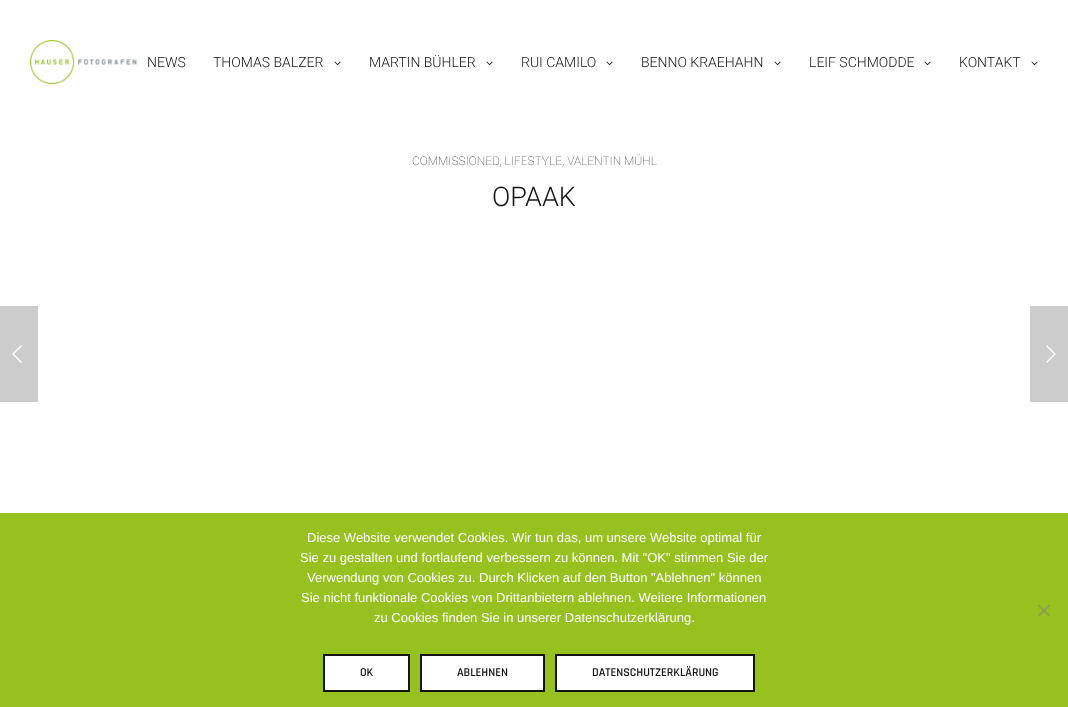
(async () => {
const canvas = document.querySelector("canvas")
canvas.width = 1068
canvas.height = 707
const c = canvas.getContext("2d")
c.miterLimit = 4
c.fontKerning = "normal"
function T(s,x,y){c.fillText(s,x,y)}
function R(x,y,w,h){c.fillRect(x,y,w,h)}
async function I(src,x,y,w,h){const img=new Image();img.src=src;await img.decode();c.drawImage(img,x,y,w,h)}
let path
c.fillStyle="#fff"
R(0,0,1068,707)
await I("1.png",30,40,108,44)
c.font="300 14px Roboto"
c.fillStyle="#151515"
T("NEWS",147,67)
T("THOMAS BALZER",213,67)
await I("2.png",334,61,7,5)
T("MARTIN BÜHLER",369,67)
await I("2.png",486,61,7,5)
T("RUI CAMILO",521,67)
await I("2.png",606,61,7,5)
T("BENNO KRAEHAHN",641,67)
await I("2.png",774,61,7,5)
T("LEIF SCHMODDE",809,67)
await I("2.png",924,61,7,5)
T("KONTAKT",959,67)
await I("2.png",1031,61,7,5)
c.font="100 12px Roboto"
c.fillStyle="#222"
T("COMMISSIONED, LIFESTYLE, VALENTIN MÜHL",412,165)
c.font="300 27px Roboto"
c.fillStyle="#151515"
T("OPAAK",492,206)
c.fillStyle="#ccc"
R(0,306,38,96)
c.fillStyle="#fff"
path = new Path2D("M22 346l-1-1l-9 9l9 9l1-1l-8-8z")
c.fill(path,"evenodd")
c.fillStyle="#ccc"
R(1030,306,38,96)
c.fillStyle="#fff"
path = new Path2D("M1046 362l1 1l9-9l-9-9l-1 1l8 8z")
c.fill(path,"evenodd")
c.fillStyle="#96c11f"
R(0,513,1068,194)
c.font="13px Liberation Sans"
c.fillStyle="#fff"
T("Diese Website verwendet Cookies. Wir tun das, um unsere Website optimal für",307,542)
T("Sie zu gestalten und fortlaufend verbessern zu können. Mit \"OK\" stimmen Sie der",300,562)
T("Verwendung von Cookies zu. Durch Klicken auf den Button \"Ablehnen\" können",307,582)
T("Sie nicht funktionale Cookies von Drittanbietern ablehnen. Weitere Informationen",301,602)
T("zu Cookies finden Sie in unserer Datenschutzerklärung.",374,622)
c.fillStyle="#8ba150"
path = new Path2D("M1048.5 604.5l1.5 1.5l-10.5 10.5l-1.5-1.5z")
c.fill(path)
path = new Path2D("M1038 606l1.5-1.5l10.5 10.5l-1.5 1.5z")
c.fill(path)
c.fillStyle="#fff"
c.beginPath()
c.rect(324,655,85,36)
c.fill()
c.strokeStyle="#151515"
c.lineWidth=2
c.stroke()
c.font="600 12px Rajdhani"
c.fillStyle="#151515"
T("OK",360,676)
c.fillStyle="#fff"
c.beginPath()
c.rect(421,655,123,36)
c.fill()
c.stroke()
c.fillStyle="#151515"
T("ABLEHNEN",457,676)
c.fillStyle="#fff"
c.beginPath()
c.rect(556,655,198,36)
c.fill()
c.stroke()
c.fillStyle="#151515"
T("DATENSCHUTZERKLÄRUNG",592,676)
})()
